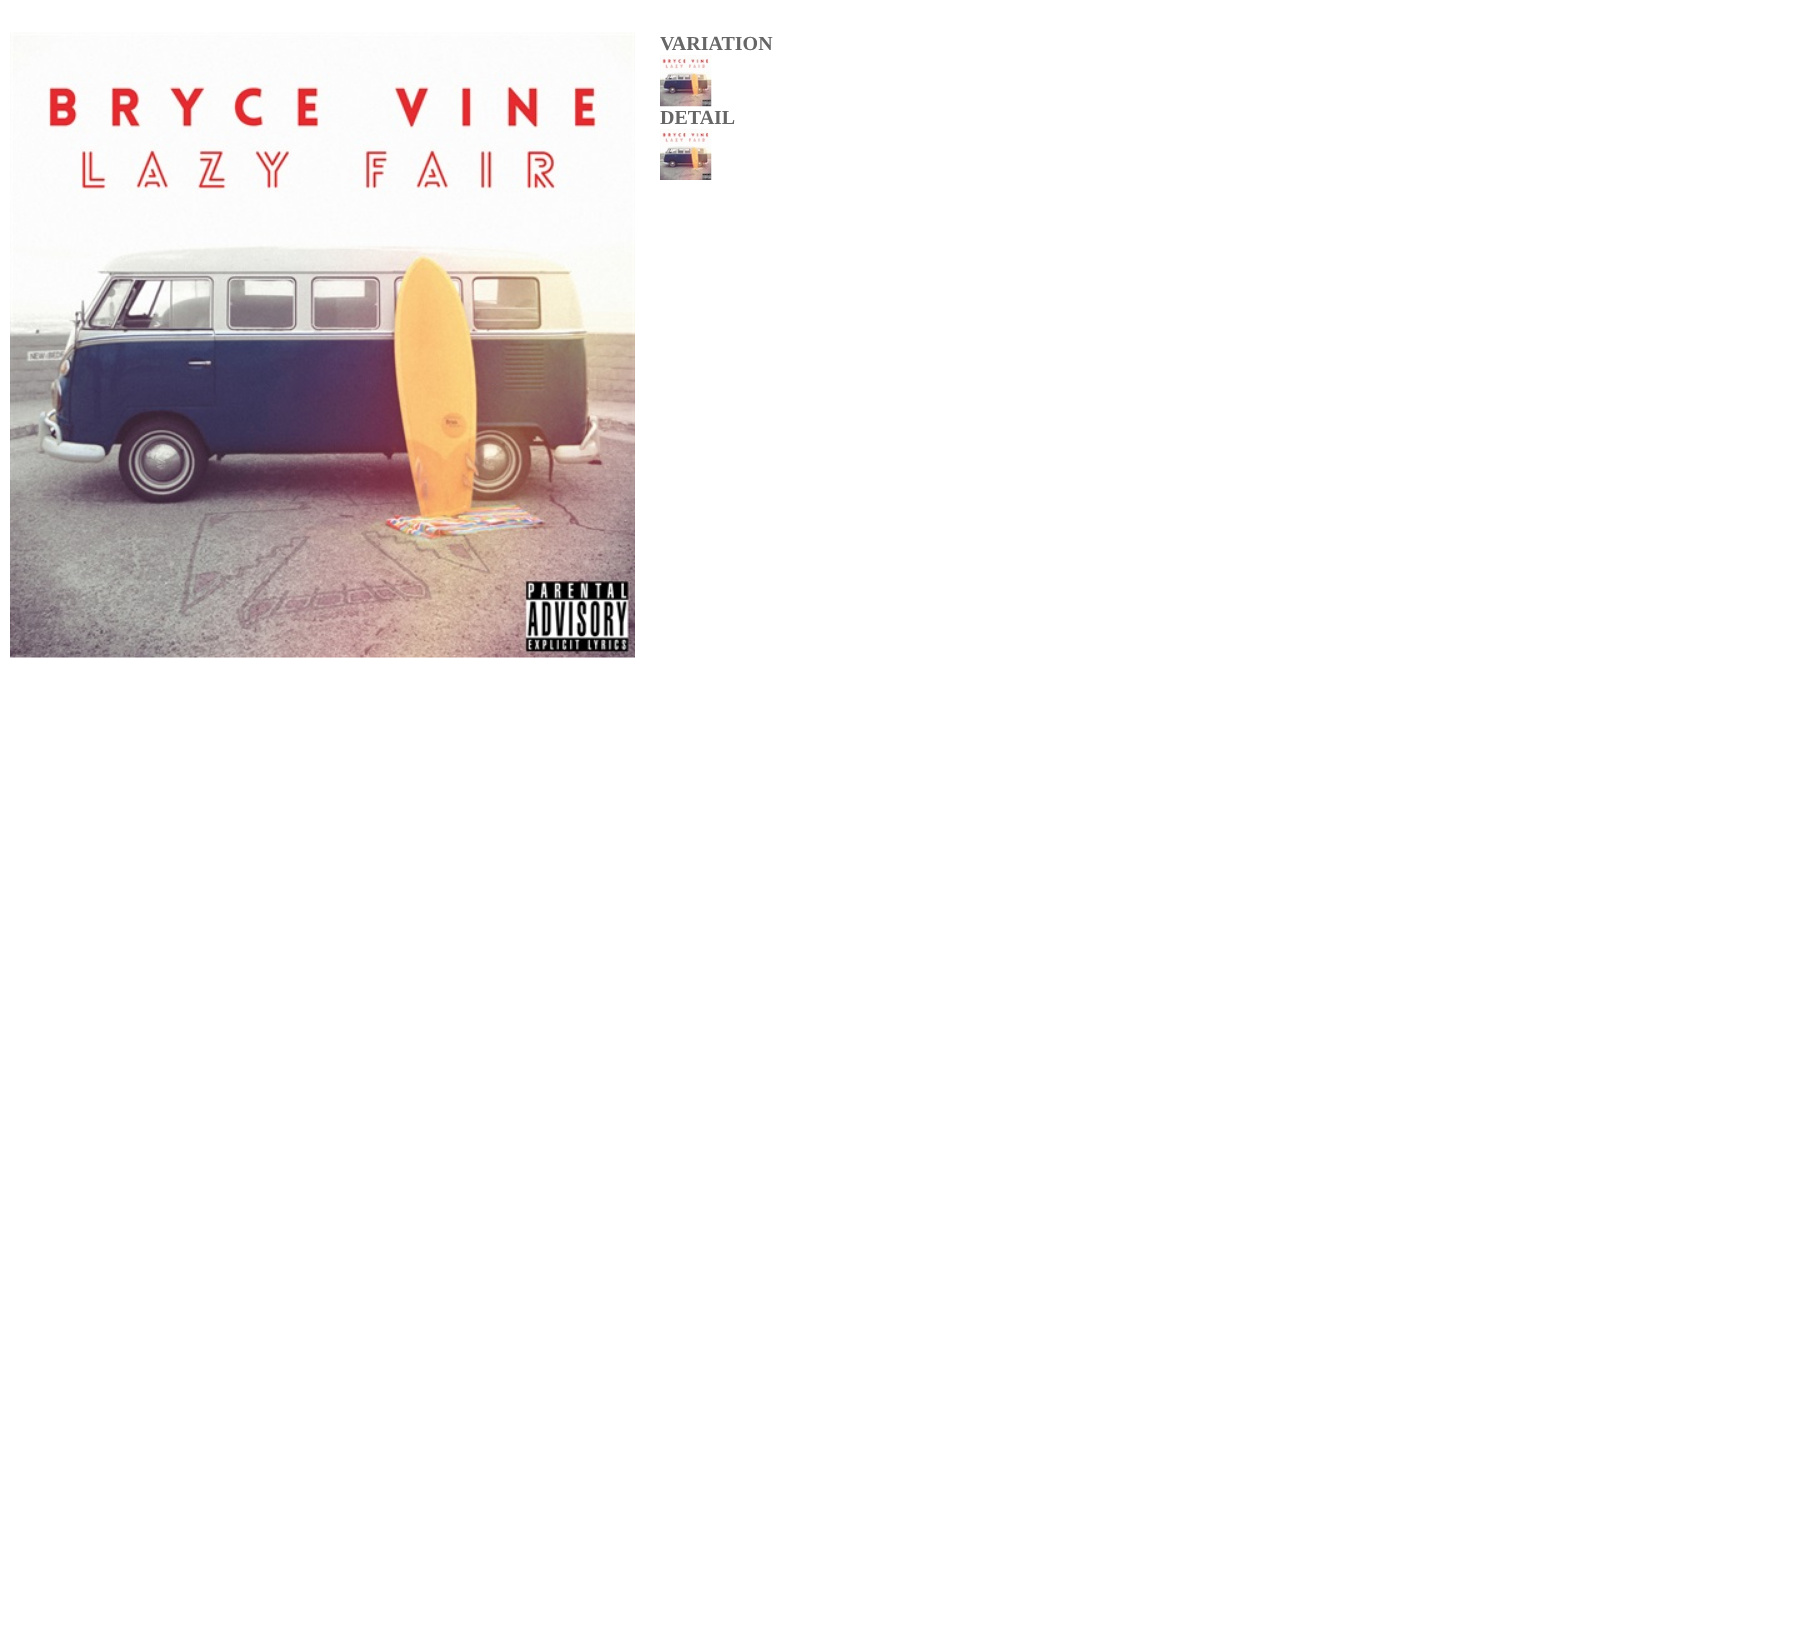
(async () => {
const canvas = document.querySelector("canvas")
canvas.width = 1795
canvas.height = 1642
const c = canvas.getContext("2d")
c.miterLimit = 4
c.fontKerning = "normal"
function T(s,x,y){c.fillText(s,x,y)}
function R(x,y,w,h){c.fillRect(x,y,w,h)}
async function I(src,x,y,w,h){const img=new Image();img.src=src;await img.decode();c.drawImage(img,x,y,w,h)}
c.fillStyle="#fff"
R(0,0,1795,1642)
await I("1.png",10,32,625,626)
c.font="bold 20px Liberation Serif"
c.fillStyle="#666"
T("VARIATION",660,50)
await I("2.png",660,55,52,52)
T("DETAIL",660,124)
await I("3.png",660,129,52,51)
})()
